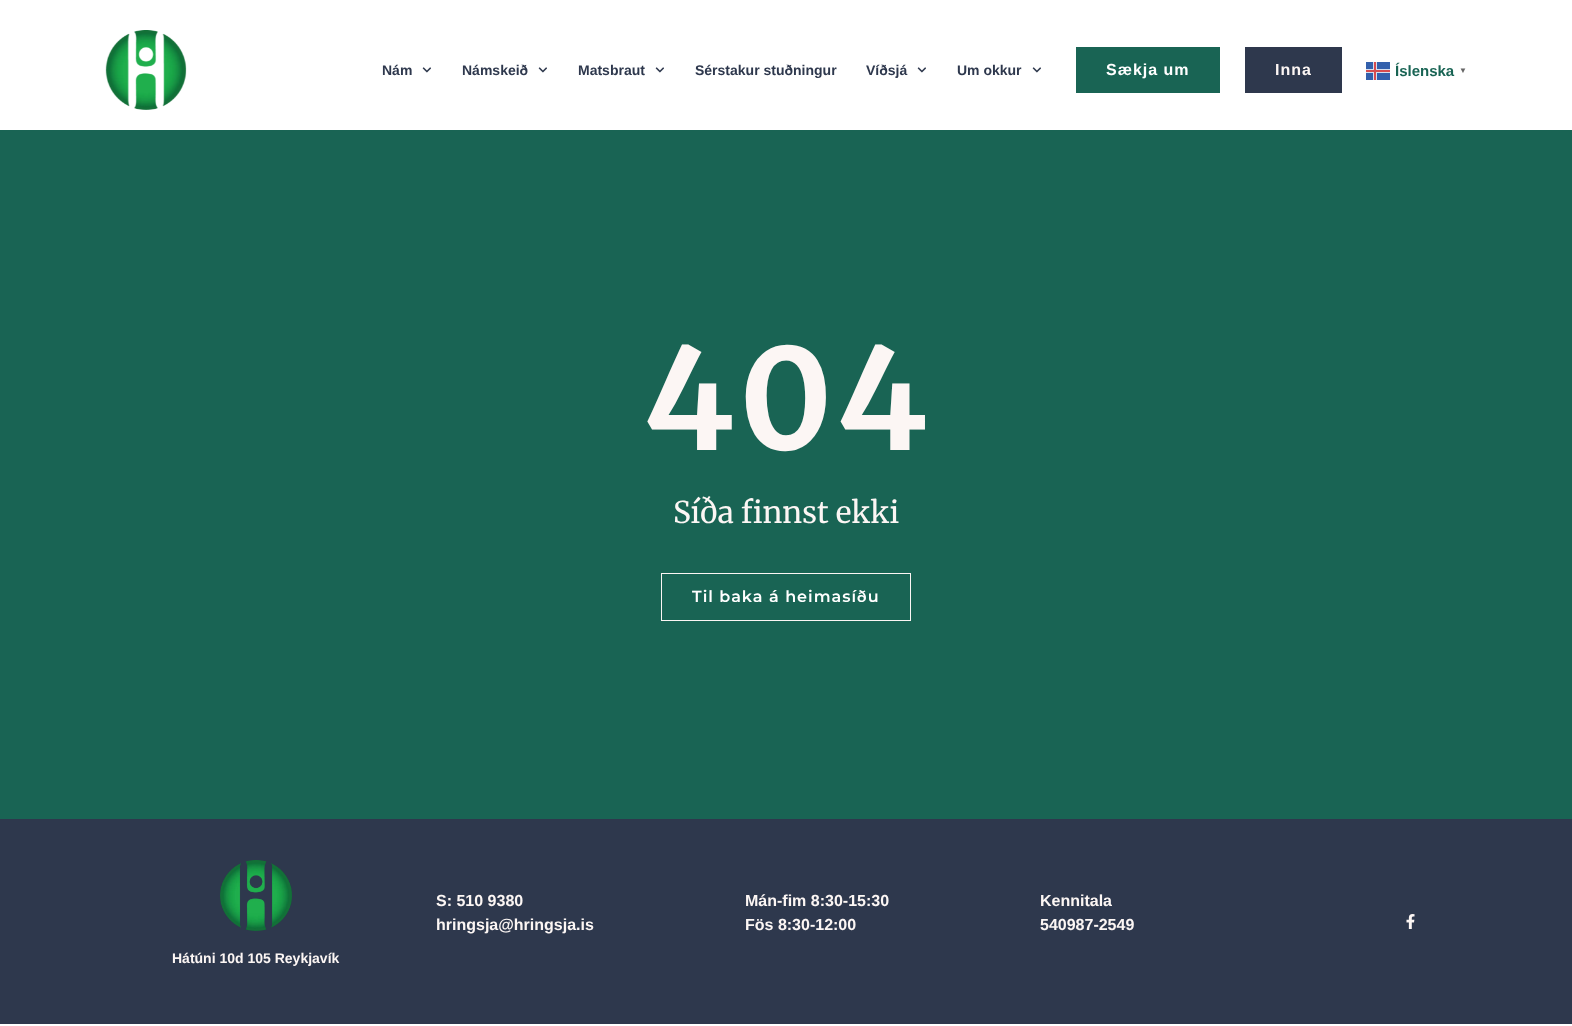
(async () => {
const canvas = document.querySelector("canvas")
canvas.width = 1572
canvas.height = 1026
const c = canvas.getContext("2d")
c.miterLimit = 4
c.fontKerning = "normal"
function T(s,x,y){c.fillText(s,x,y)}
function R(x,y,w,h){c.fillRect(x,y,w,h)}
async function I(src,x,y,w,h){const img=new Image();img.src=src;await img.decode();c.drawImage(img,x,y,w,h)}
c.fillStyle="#fff"
R(0,0,1572,1026)
await I("1.png",105,30,82,80)
c.font="bold 14px Liberation Sans"
c.fillStyle="#2e384d"
T("Nám",382,75)
await I("2.png",422,67,9,6)
T("Námskeið",462,75)
await I("2.png",538,67,9,6)
T("Matsbraut",578,75)
await I("2.png",655,67,9,6)
T("Sérstakur stuðningur",695,75)
T("Víðsjá",866,75)
await I("2.png",917,67,9,6)
T("Um okkur",957,75)
await I("2.png",1032,67,9,6)
c.fillStyle="#196454"
R(1076,47,144,46)
c.letterSpacing="1px"
c.font="bold 16px Liberation Sans"
c.fillStyle="#fff"
T("Sækja um",1106,75)
c.fillStyle="#2e384d"
R(1245,47,97,46)
c.fillStyle="#fcf6f4"
T("Inna",1275,75)
await I("3.png",1366,62,24,18)
c.letterSpacing="0px"
c.font="bold 15px Liberation Sans"
c.fillStyle="#196454"
T("Íslenska",1395,76)
c.font="bold 8px Liberation Sans"
c.fillStyle="#666"
T("▼",1459,73)
c.fillStyle="#196454"
R(0,130,1572,689)
c.font="600 140px Merriweather Sans"
c.fillStyle="#fcf6f4"
T("404",641,450)
c.font="30px Merriweather"
T("Síða finnst ekki",673,523)
c.strokeStyle="#fcf6f4"
c.strokeRect(661.5,573.5,249,47)
c.letterSpacing="1px"
c.font="600 16px Montserrat"
c.fillStyle="#fff"
T("Til baka á heimasíðu",692,602)
c.fillStyle="#2e384d"
R(0,819,1572,205)
c.letterSpacing="0px"
c.font="bold 16px Liberation Sans"
c.fillStyle="#fcf6f4"
T("S: 510 9380",436,906)
T("hringsja@hringsja.is",436,930)
T("Mán-fim 8:30-15:30",745,906)
T("Fös 8:30-12:00",745,930)
T("Kennitala",1040,906)
T("540987-2549",1040,930)
await I("4.png",1406,914,9,15)
await I("5.png",220,860,72,71)
c.font="bold 14px Liberation Sans"
T("Hátúni 10d 105 Reykjavík",172,963)
})()
